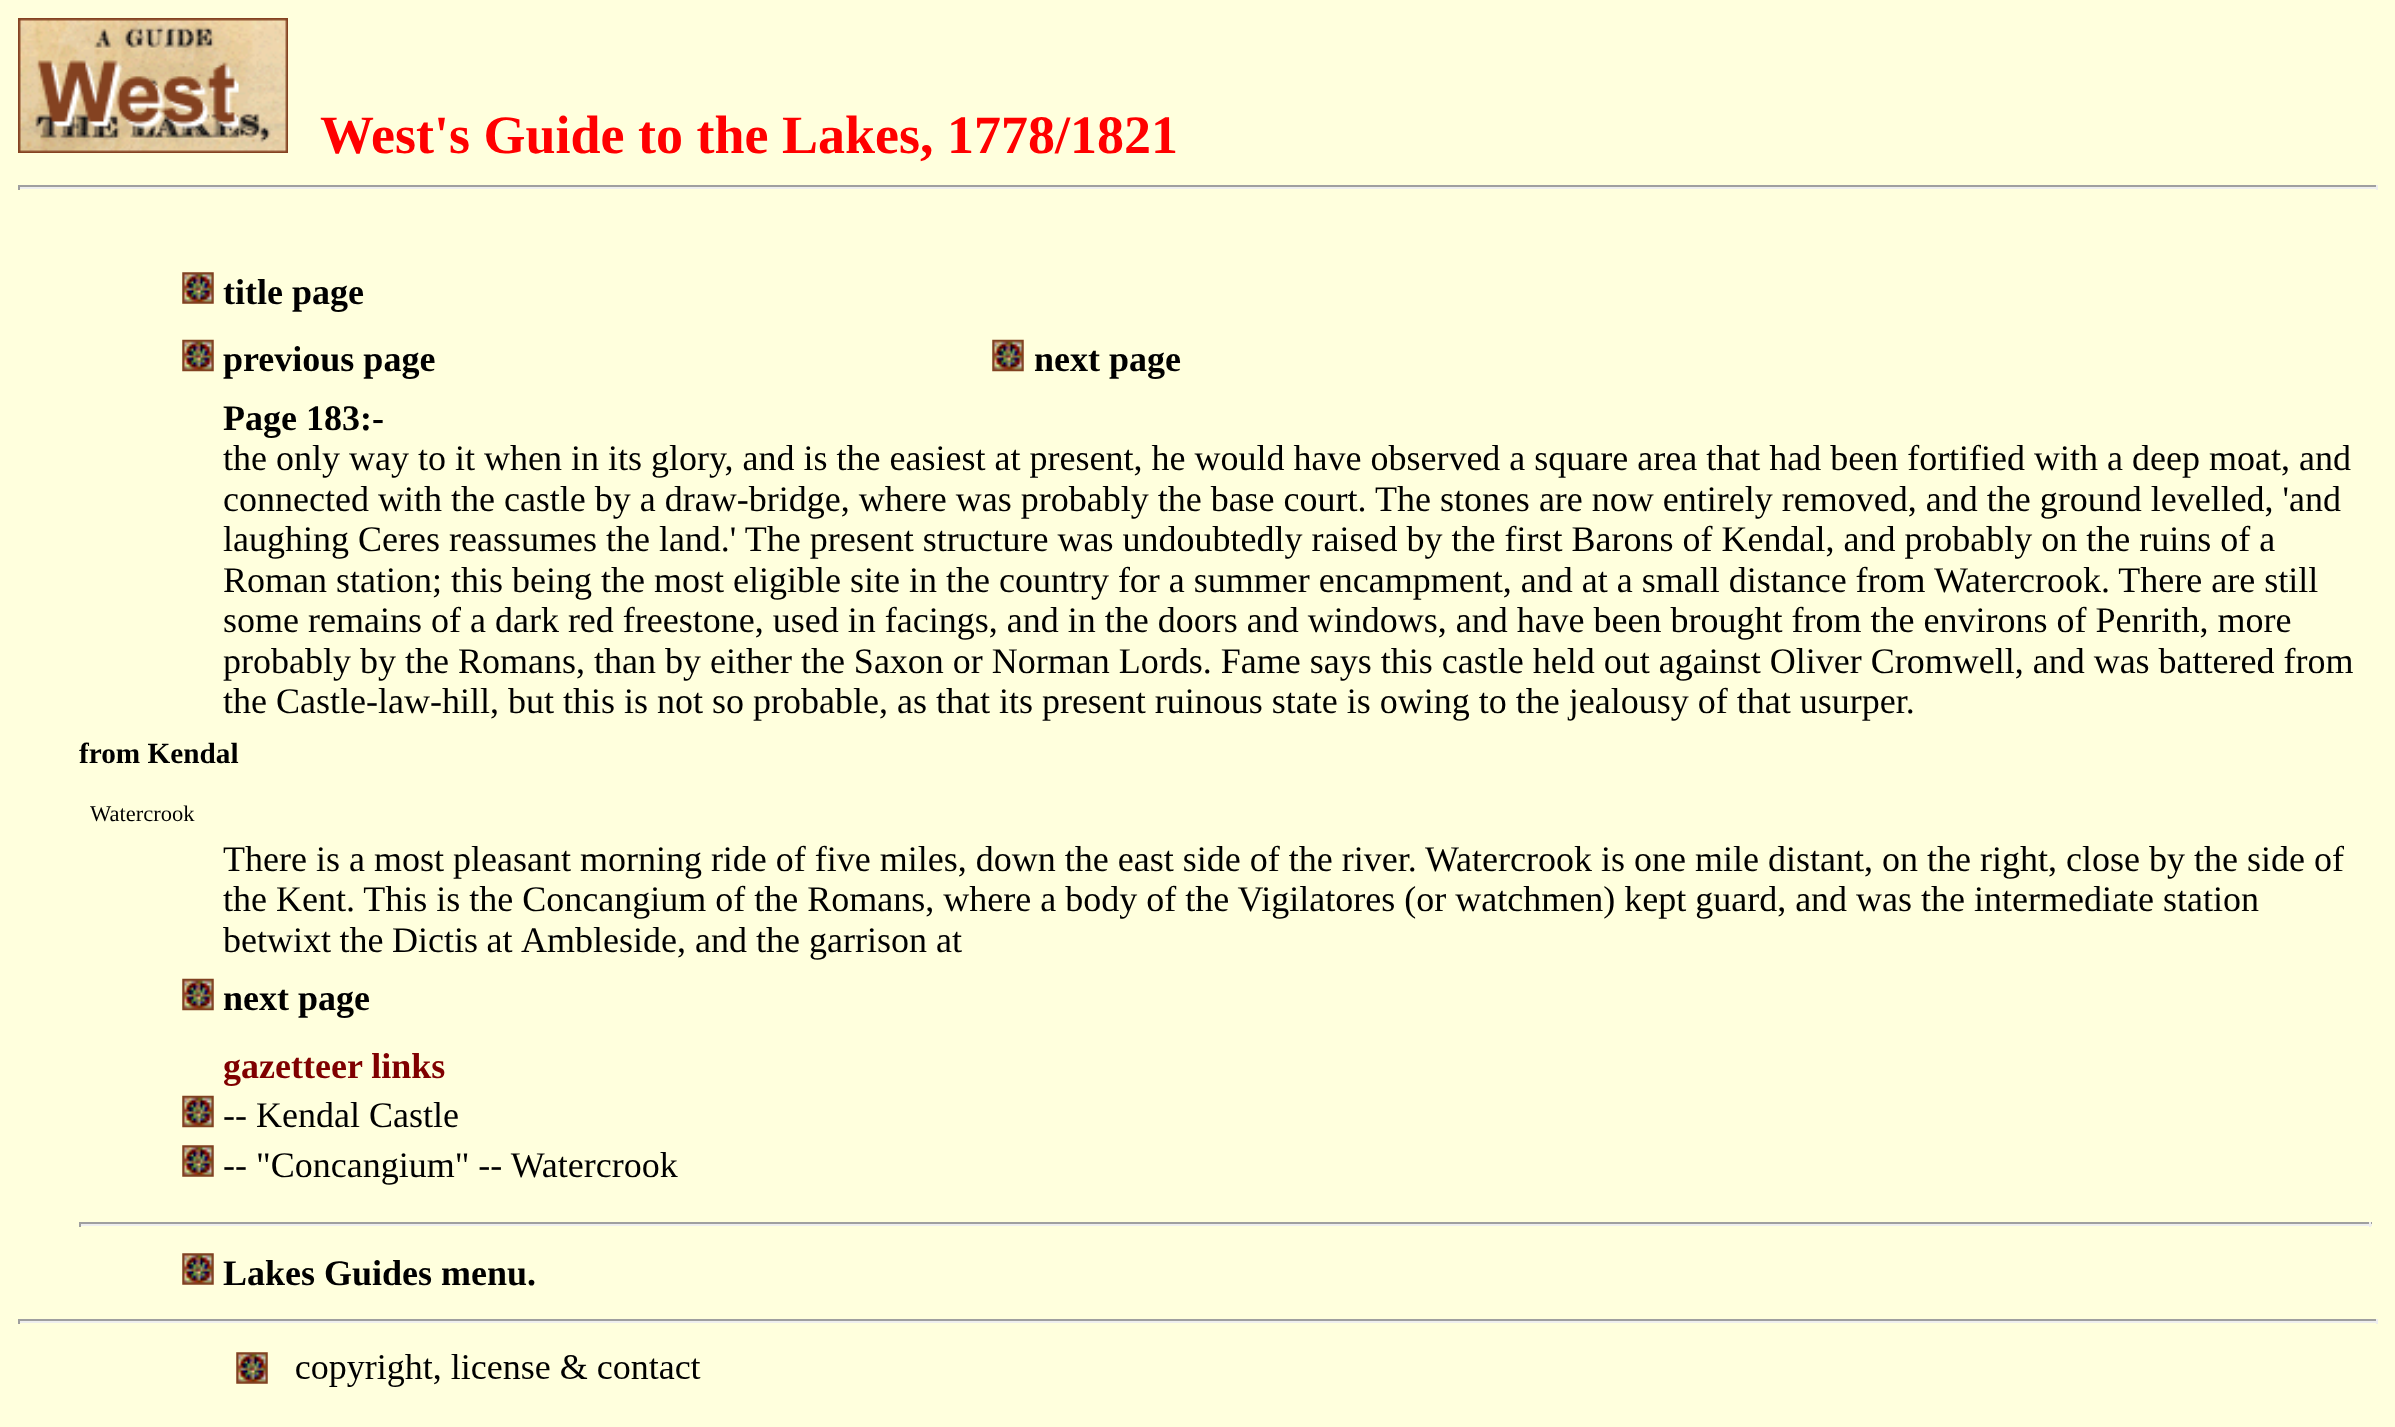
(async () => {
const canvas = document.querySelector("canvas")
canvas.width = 2395
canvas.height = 1427
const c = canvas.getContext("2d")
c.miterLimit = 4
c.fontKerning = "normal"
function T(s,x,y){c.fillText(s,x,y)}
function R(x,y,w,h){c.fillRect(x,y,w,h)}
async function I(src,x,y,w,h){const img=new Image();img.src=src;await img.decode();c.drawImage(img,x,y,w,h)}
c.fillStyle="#ffd"
R(0,0,2395,1427)
await I("1.png",18,18,270,135)
c.font="bold 54px Liberation Serif"
c.fillStyle="#f00"
T("West's Guide to the Lakes, 1778/1821",320,153)
c.fillStyle="#9f9f9f"
R(18,185,2360,2)
c.fillStyle="#eee"
R(2376,185,2,5)
R(18,187,2360,2)
c.fillStyle="#9f9f9f"
R(18,185,2,5)
await I("2.png",182,272,32,32)
c.font="bold 36px Liberation Serif"
c.fillStyle="#000"
T("title page",223,304)
await I("3.png",182,339,32,33)
T("previous page",223,371)
await I("4.png",992,339,32,33)
T("next page",1034,371)
T("Page 183:-",223,430)
c.font="36px Liberation Serif"
T("the only way to it when in its glory, and is the easiest at present, he would have observed a square area that had been fortified with a deep moat, and",223,470)
T("connected with the castle by a draw-bridge, where was probably the base court. The stones are now entirely removed, and the ground levelled, 'and",223,511)
T("laughing Ceres reassumes the land.' The present structure was undoubtedly raised by the first Barons of Kendal, and probably on the ruins of a",223,551)
T("Roman station; this being the most eligible site in the country for a summer encampment, and at a small distance from",223,592)
T("Watercrook. There are still",1934,592)
T("some remains of a dark red freestone, used in facings, and in the doors and windows, and have been brought from the environs of Penrith, more",223,632)
T("probably by the Romans, than by either the Saxon or Norman Lords. Fame says this castle held out against Oliver Cromwell, and was battered from",223,673)
T("the Castle-law-hill, but this is not so probable, as that its present ruinous state is owing to the jealousy of that usurper.",223,713)
c.font="bold 29.25px Liberation Serif"
T("from Kendal",79,763)
c.font="22.5px Liberation Serif"
T("Watercrook",90,821)
c.font="36px Liberation Serif"
T("There is a most pleasant morning ride of five miles, down the east side of the river. Watercrook is one mile distant, on the right, close by the side of",223,871)
T("the Kent. This is the Concangium of the Romans, where a body of the Vigilatores (or watchmen) kept guard, and was the intermediate station",223,911)
c.wordSpacing="-0.5px"
T("betwixt the Dictis at",223,952)
c.wordSpacing="0px"
T("Ambleside, and the garrison at",521,952)
await I("3.png",182,978,32,33)
c.font="bold 36px Liberation Serif"
T("next page",223,1010)
c.fillStyle="#800000"
T("gazetteer links",223,1078)
await I("3.png",182,1095,32,33)
c.font="36px Liberation Serif"
c.fillStyle="#000"
T("-- Kendal Castle",223,1127)
await I("2.png",182,1145,32,32)
T("-- \"Concangium\" -- Watercrook",223,1177)
c.fillStyle="#9f9f9f"
R(79,1222,2293,2)
c.fillStyle="#eee"
R(2369,1222,2,5)
R(79,1224,2293,2)
c.fillStyle="#9f9f9f"
R(79,1222,2,5)
await I("5.png",182,1253,32,32)
c.font="bold 36px Liberation Serif"
c.fillStyle="#000"
T("Lakes Guides menu.",223,1285)
c.fillStyle="#9f9f9f"
R(18,1319,2360,2)
c.fillStyle="#eee"
R(2376,1319,2,5)
R(18,1321,2360,2)
c.fillStyle="#9f9f9f"
R(18,1319,2,5)
await I("6.png",236,1352,465,35)
})()
